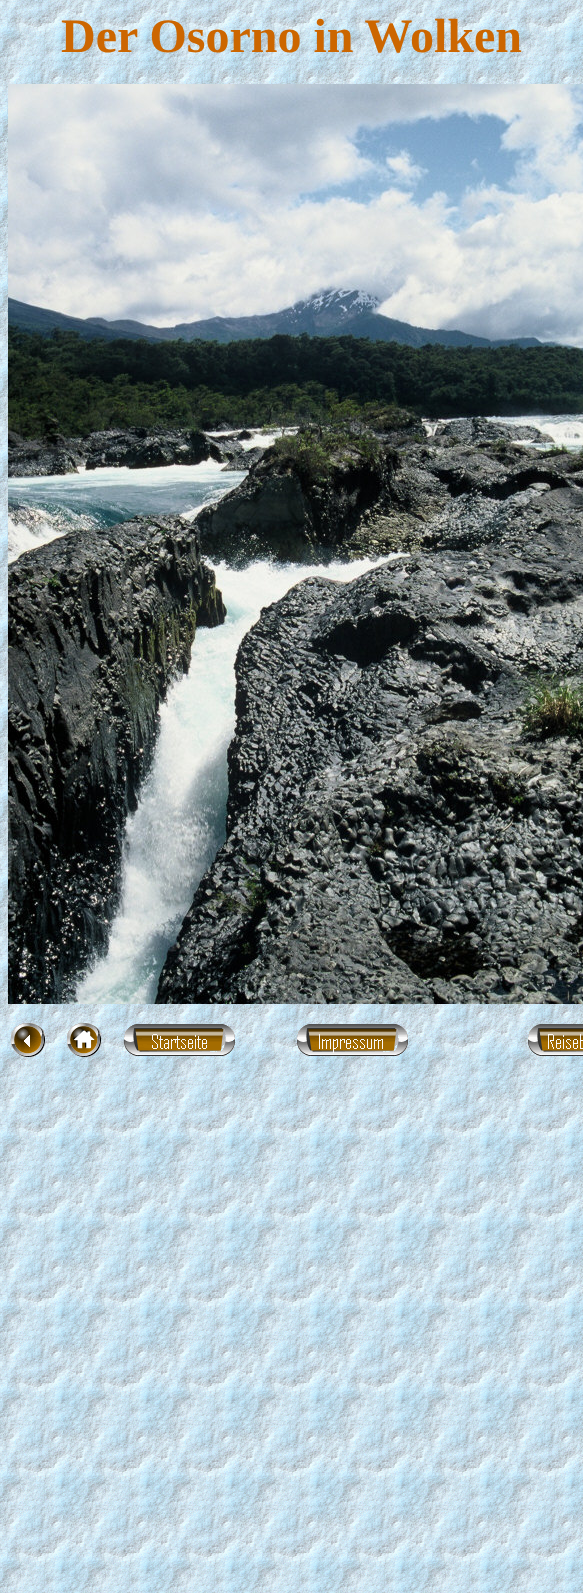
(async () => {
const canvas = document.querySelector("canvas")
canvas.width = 583
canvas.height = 1593
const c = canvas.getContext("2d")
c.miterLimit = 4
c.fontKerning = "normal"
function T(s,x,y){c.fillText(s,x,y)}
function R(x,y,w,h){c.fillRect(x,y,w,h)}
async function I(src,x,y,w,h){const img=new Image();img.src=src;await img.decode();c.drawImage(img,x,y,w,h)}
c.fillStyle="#fff"
R(0,0,583,1593)
await I("1.png",0,0,583,1593)
c.font="bold 48px Liberation Serif"
c.fillStyle="#c60"
T("Der Osorno in Wolken",61,52)
await I("2.png",8,84,575,920)
await I("3.png",11,1023,34,34)
await I("4.png",67,1023,34,34)
await I("5.png",124,1024,111,32)
await I("6.png",297,1024,111,32)
await I("7.png",528,1024,55,32)
})()
